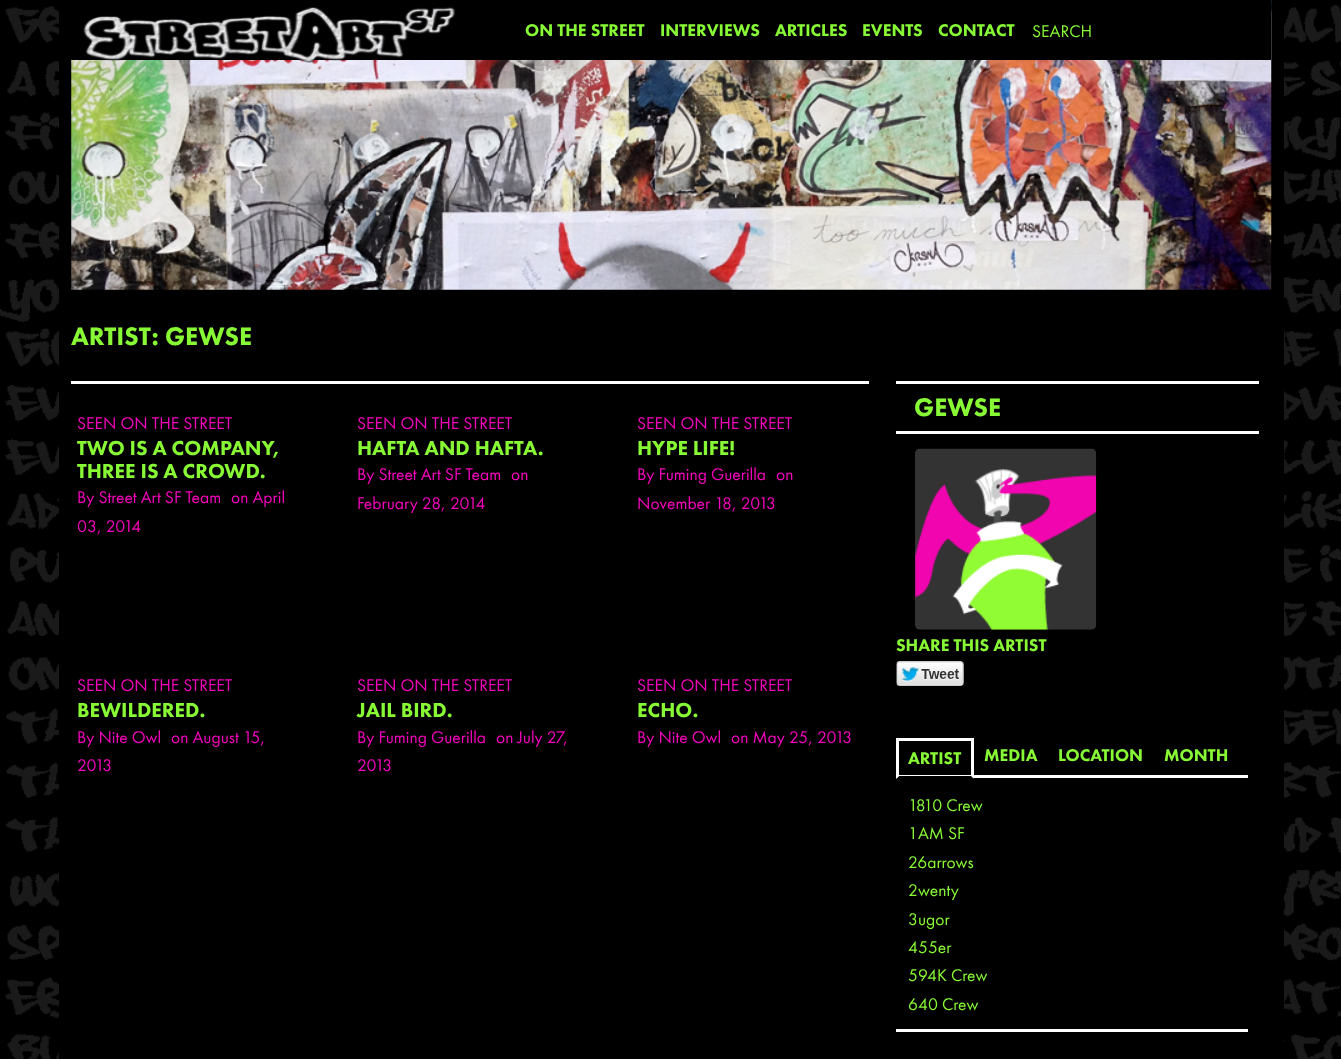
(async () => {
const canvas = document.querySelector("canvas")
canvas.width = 1341
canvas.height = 1059
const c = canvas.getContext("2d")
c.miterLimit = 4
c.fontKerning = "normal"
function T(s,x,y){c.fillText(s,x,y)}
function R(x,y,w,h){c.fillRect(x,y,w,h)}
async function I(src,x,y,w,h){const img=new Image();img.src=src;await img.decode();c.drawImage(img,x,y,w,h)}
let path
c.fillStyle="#fff"
R(0,0,1341,1059)
await I("1.png",0,0,1341,1059)
c.fillStyle="#000"
R(59,5,1225,1054)
await I("2.png",71,0,1201,290)
R(71,0,1200,60)
await I("3.png",83,7,372,56)
c.font="900 17.5px Futura PT"
c.fillStyle="#88f935"
T("ON THE STREET",525,36)
T("INTERVIEWS",660,36)
T("ARTICLES",775,36)
T("EVENTS",862,36)
T("CONTACT",938,36)
c.font="17.5px Futura PT"
T("SEARCH",1032,37)
c.fillStyle="#fff"
R(71,381,798,3)
c.font="900 26.25px Futura PT"
c.fillStyle="#88f935"
T("ARTIST: GEWSE",71,345)
c.font="17.5px Futura PT"
c.fillStyle="#f803be"
T("SEEN ON THE STREET",77,429)
c.font="900 21px Futura PT"
c.fillStyle="#88f935"
T("TWO IS A COMPANY,",77,455)
T("THREE IS A CROWD.",77,478)
c.font="17.5px Futura PT"
c.fillStyle="#f803be"
T("By Street Art SF Team",77,503)
T("on April",231,503)
c.save()
c.beginPath()
c.rect(78,484,225,56)
c.clip()
T("03, 2014",77,532)
c.restore()
T("SEEN ON THE STREET",357,429)
c.font="900 21px Futura PT"
c.fillStyle="#88f935"
T("HAFTA AND HAFTA.",357,455)
c.font="17.5px Futura PT"
c.fillStyle="#f803be"
T("By Street Art SF Team",357,480)
T("on",511,480)
T("February 28, 2014",357,509)
T("SEEN ON THE STREET",637,429)
c.font="900 21px Futura PT"
c.fillStyle="#88f935"
T("HYPE LIFE!",637,455)
c.font="17.5px Futura PT"
c.fillStyle="#f803be"
T("By Fuming Guerilla",637,480)
T("on",776,480)
T("November 18, 2013",637,509)
T("SEEN ON THE STREET",77,691)
c.font="900 21px Futura PT"
c.fillStyle="#88f935"
T("BEWILDERED.",77,717)
c.font="17.5px Futura PT"
c.fillStyle="#f803be"
T("By Nite Owl",77,743)
T("on August 15,",171,743)
T("2013",77,771)
T("SEEN ON THE STREET",357,691)
c.font="900 21px Futura PT"
c.fillStyle="#88f935"
T("JAIL BIRD.",357,717)
c.font="17.5px Futura PT"
c.fillStyle="#f803be"
T("By Fuming Guerilla",357,743)
T("on July 27,",496,743)
T("2013",357,771)
T("SEEN ON THE STREET",637,691)
c.font="900 21px Futura PT"
c.fillStyle="#88f935"
T("ECHO.",637,717)
c.font="17.5px Futura PT"
c.fillStyle="#f803be"
T("By Nite Owl",637,743)
T("on May 25, 2013",731,743)
c.fillStyle="#fff"
R(896,381,363,3)
R(896,431,363,3)
c.font="900 26.25px Futura PT"
c.fillStyle="#88f935"
T("GEWSE",914,416)
await I("4.png",915,448,182,182)
c.font="900 17.5px Futura PT"
T("SHARE THIS ARTIST",896,651)
await I("5.png",896,661,68,25)
c.fillStyle="#fff"
R(896,775,352,3)
R(896,738,78,3)
path = new Path2D("M974 738v41l-3-3v-36z")
c.fill(path)
c.fillStyle="#000"
path = new Path2D("M974 779h-78l3-3h72z")
c.fill(path)
c.fillStyle="#fff"
path = new Path2D("M896 779v-41l3 2v36z")
c.fill(path)
c.fillStyle="#88f935"
T("ARTIST",908,764)
T("MEDIA",984,761)
T("LOCATION",1058,761)
T("MONTH",1164,761)
c.fillStyle="#fff"
R(896,1029,352,3)
c.font="17.5px Futura PT"
c.fillStyle="#88f935"
T("1810 Crew",908,811)
T("1AM SF",908,839)
T("26arrows",908,868)
T("2wenty",908,896)
T("3ugor",908,925)
T("455er",908,953)
T("594K Crew",908,981)
T("640 Crew",908,1010)
})()
